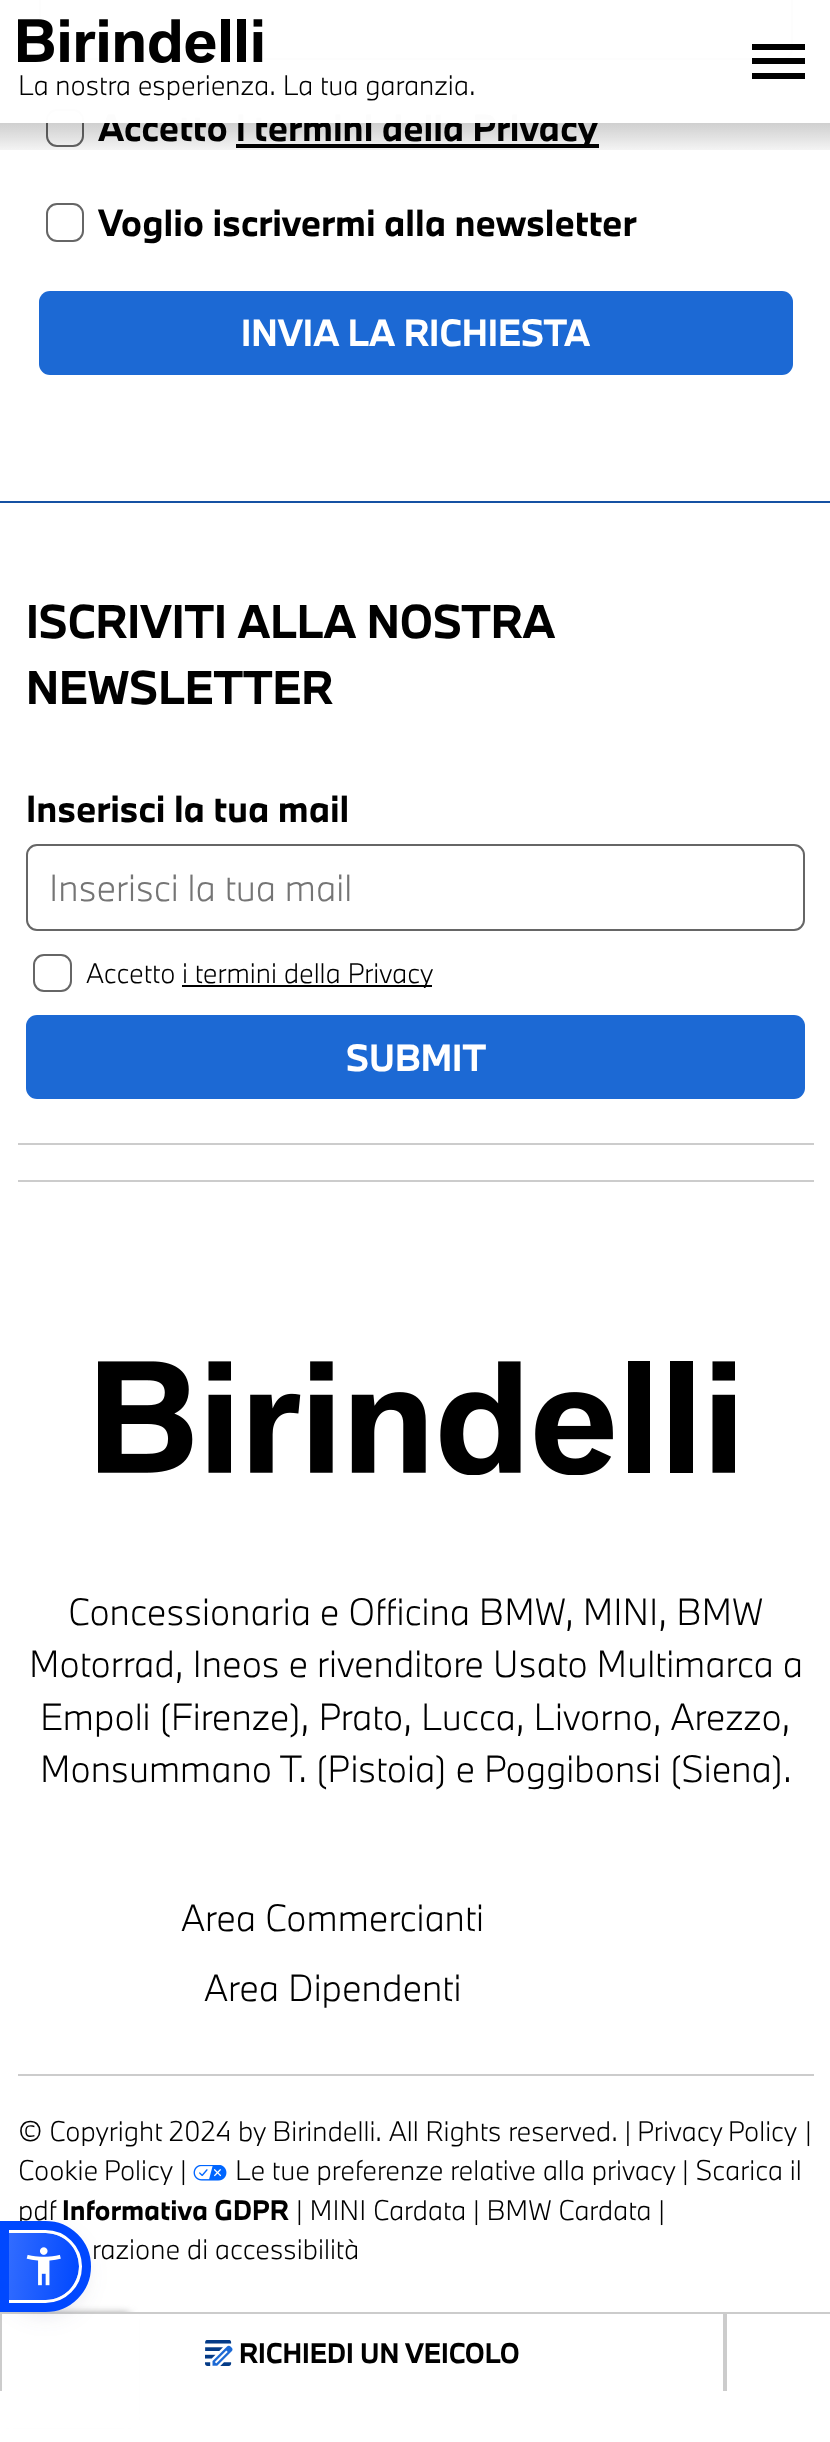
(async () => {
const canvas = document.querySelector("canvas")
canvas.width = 830
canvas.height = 2442
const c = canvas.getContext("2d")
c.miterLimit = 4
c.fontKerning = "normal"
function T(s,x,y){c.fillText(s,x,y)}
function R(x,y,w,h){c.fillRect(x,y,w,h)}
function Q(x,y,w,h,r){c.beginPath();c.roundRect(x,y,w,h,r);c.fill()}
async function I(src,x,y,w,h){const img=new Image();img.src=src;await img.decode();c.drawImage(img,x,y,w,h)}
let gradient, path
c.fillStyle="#fff"
R(0,0,830,2442)
c.beginPath()
c.roundRect(40,-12,752,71,10)
c.strokeStyle="#666"
c.lineWidth=2
c.stroke()
c.beginPath()
c.roundRect(47,110,36,36,10)
c.stroke()
c.font="bold 35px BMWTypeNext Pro"
c.fillStyle="#000"
T("Accetto",98,141)
R(236,144,363,4)
T("i termini della Privacy",236,141)
c.fillStyle="#ffffffd9"
R(39,0,754,123)
c.fillStyle="#ffffffe6"
R(39,0,754,123)
c.fillStyle="#000"
path = new Path2D("M752 44h53v6h-53zm0 20v-6h53v6zm0 15v-6h53v6z")
c.fill(path)
await I("1.png",18,19,245,44)
c.font="300 26.25px BMWTypeNext Pro"
T("La nostra esperienza. La tua garanzia.",18,95)
gradient = c.createLinearGradient(416,122,416,158)
gradient.addColorStop(0,"#0000001a")
gradient.addColorStop(1,"#00000000")
c.fillStyle = gradient
R(0,123,830,27)
R(0,123,830,27)
c.beginPath()
c.roundRect(47,204,36,37,10)
c.stroke()
c.font="bold 35px BMWTypeNext Pro"
c.fillStyle="#000"
T("Voglio iscrivermi alla newsletter",98,236)
c.fillStyle="#1c69d4"
Q(39,291,754,84,11)
c.fillStyle="#fff"
T("INVIA LA RICHIESTA",241,346)
c.fillStyle="#1551a3"
R(0,501,830,2)
c.font="bold 43.75px BMWTypeNext Pro"
c.fillStyle="#000"
T("ISCRIVITI ALLA NOSTRA",26,638)
T("NEWSLETTER",26,704)
c.font="bold 35px BMWTypeNext Pro"
T("Inserisci la tua mail",26,822)
c.beginPath()
c.roundRect(27,845,777,85,10)
c.stroke()
c.font="300 35px BMWTypeNext Pro"
c.fillStyle="#757575"
T("Inserisci la tua mail",49,901)
c.beginPath()
c.roundRect(34,955,37,36,10)
c.stroke()
c.font="300 26.25px BMWTypeNext Pro"
c.fillStyle="#000"
T("Accetto",86,983)
R(182,985,250,2)
T("i termini della Privacy",182,983)
c.fillStyle="#1c69d4"
Q(26,1015,779,84,11)
c.font="bold 35px BMWTypeNext Pro"
c.fillStyle="#fff"
T("SUBMIT",346,1071)
c.fillStyle="#ccc"
R(18,1143,796,2)
R(18,1180,796,2)
await I("2.png",98,1361,637,114)
c.font="300 35px BMWTypeNext Pro"
c.fillStyle="#000"
T("Concessionaria e Officina BMW, MINI, BMW",68,1625)
T("Motorrad, Ineos e rivenditore Usato Multimarca a",29,1677)
T("Empoli (Firenze), Prato, Lucca, Livorno, Arezzo,",40,1730)
T("Monsummano T. (Pistoia) e Poggibonsi (Siena).",40,1782)
T("Area Commercianti",181,1931)
T("Area Dipendenti",204,2001)
c.fillStyle="#ccc"
R(18,2074,796,2)
c.font="300 26.25px BMWTypeNext Pro"
c.fillStyle="#000"
T("© Copyright 2024 by Birindelli. All Rights reserved. |",18,2141)
c.wordSpacing="-1px"
T("Privacy Policy",637,2141)
c.wordSpacing="0px"
T("|",805,2141)
c.wordSpacing="-1px"
T("Cookie Policy",18,2180)
c.wordSpacing="0px"
T("|",180,2180)
await I("3.png",193,2165,34,16)
T("Le tue preferenze relative alla privacy | Scarica il",235,2180)
T("pdf",18,2220)
c.font="bold 26.25px BMWTypeNext Pro"
T("Informativa GDPR",62,2220)
c.font="300 26.25px BMWTypeNext Pro"
T("| MINI Cardata | BMW Cardata |",296,2220)
T("razione di accessibilità",92,2259)
c.fillStyle="#808080"
c.filter="blur(4.5px)"
c.beginPath()
c.roundRect(7,2314,123,105,4)
c.fill()
c.filter="none"
c.fillStyle="#ccc"
R(0,2312,830,2)
c.fillStyle="#fff"
R(0,2314,139,114)
c.fillStyle="#ccc"
R(0,2314,2,77)
c.fillStyle="#5d649433"
c.filter="blur(3.5px)"
c.beginPath()
c.roundRect(9,2233,73,74,36.5)
c.fill()
c.filter="none"
c.fillStyle="#252c6126"
c.filter="blur(13px)"
c.beginPath()
c.roundRect(9,2238,73,74,36.5)
c.fill()
c.filter="none"
gradient = c.createLinearGradient(5.7,2262,82,2270)
gradient.addColorStop(0,"#326cff")
gradient.addColorStop(1,"#0048ff")
c.fillStyle = gradient
c.beginPath()
c.roundRect(9,2233,70,67,[0,33.5,33.5,0])
c.fill()
c.fillStyle="#fff"
path = new Path2D("M9 2230h37c20 0 36 16 36 36c0 21-16 37-36 37h-37zm0 3h37c18 0 33 15 33 33c0 19-15 34-33 34h-37z")
c.fill(path,"evenodd")
c.beginPath()
c.roundRect(4.5,2225.5,82,82,[0,41,41,0])
c.strokeStyle="#0048ff"
c.lineWidth=9
c.stroke()
await I("4.png",26,2247,35,39)
c.fillStyle="#ccc"
R(723,2314,4,77)
await I("5.png",205,2340,28,26)
c.font="bold 26.25px BMWTypeNext Pro"
c.fillStyle="#000"
T("RICHIEDI UN VEICOLO",239,2363)
})()
